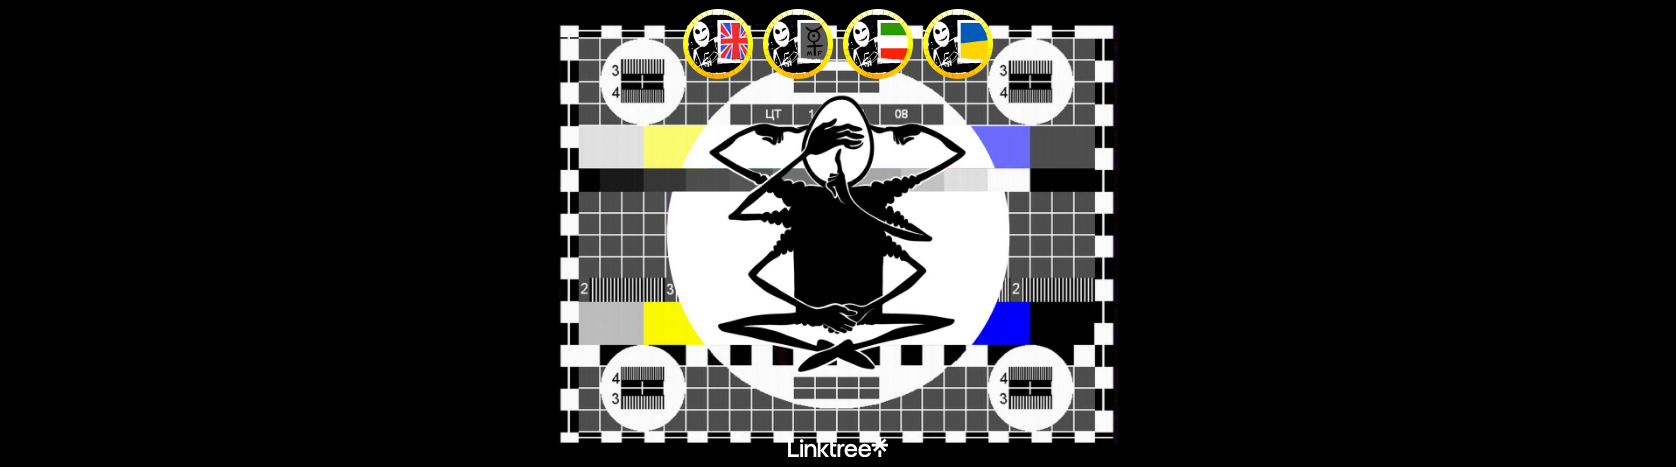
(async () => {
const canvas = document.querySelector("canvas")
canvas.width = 1676
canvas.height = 467
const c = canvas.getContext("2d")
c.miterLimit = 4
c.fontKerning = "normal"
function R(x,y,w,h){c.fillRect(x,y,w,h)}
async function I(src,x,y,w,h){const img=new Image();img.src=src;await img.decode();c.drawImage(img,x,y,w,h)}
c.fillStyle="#000"
R(0,0,1676,467)
await I("9.png",559,23,559,421)
await I("1.png",683,9,70,70)
await I("2.png",688,14,60,60)
await I("3.png",763,9,70,70)
await I("4.png",768,14,60,60)
await I("5.png",843,9,70,70)
await I("6.png",848,14,60,60)
await I("7.png",923,9,70,70)
await I("8.png",928,14,60,60)
await I("10.png",788,437,100,20)
})()
